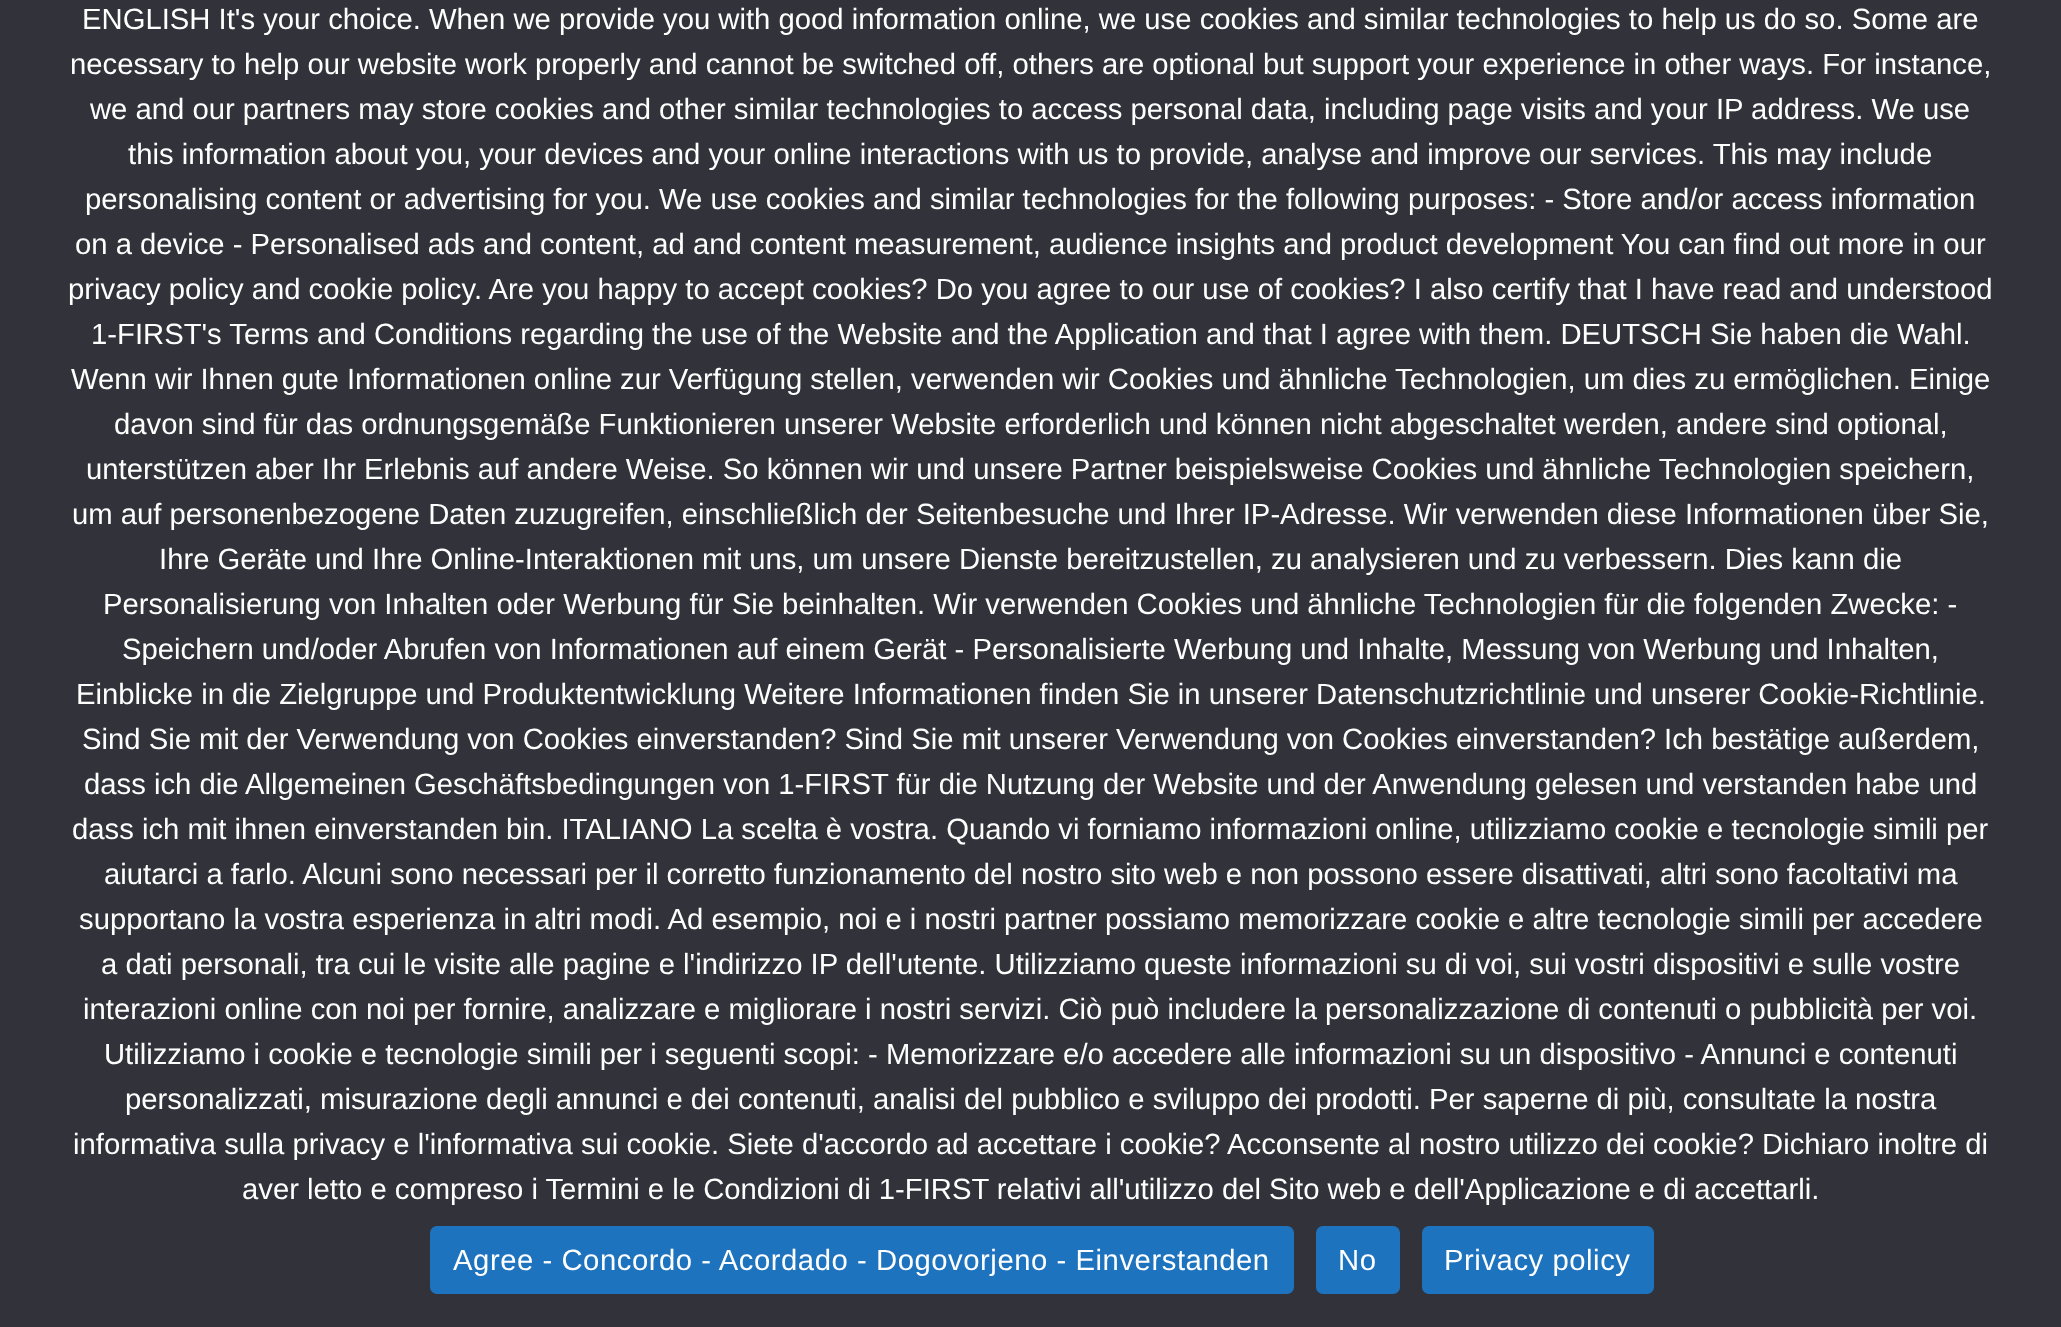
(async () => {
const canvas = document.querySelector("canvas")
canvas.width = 2061
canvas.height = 1327
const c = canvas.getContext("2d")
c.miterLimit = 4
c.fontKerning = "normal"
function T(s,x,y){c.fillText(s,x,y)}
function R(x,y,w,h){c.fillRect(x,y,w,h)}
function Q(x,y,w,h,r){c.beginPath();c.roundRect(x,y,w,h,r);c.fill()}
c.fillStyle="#32323a"
R(0,0,2061,1327)
c.font="29.25px Liberation Sans"
c.fillStyle="#fff"
T("ENGLISH It's your choice. When we provide you with good information online, we use cookies and similar technologies to help us do so. Some are",82,29)
T("necessary to help our website work properly and cannot be switched off, others are optional but support your experience in other ways. For instance,",70,74)
T("we and our partners may store cookies and other similar technologies to access personal data, including page visits and your IP address. We use",90,119)
T("this information about you, your devices and your online interactions with us to provide, analyse and improve our services. This may include",128,164)
T("personalising content or advertising for you. We use cookies and similar technologies for the following purposes: - Store and/or access information",85,209)
T("on a device - Personalised ads and content, ad and content measurement, audience insights and product development You can find out more in our",75,254)
T("privacy policy and cookie policy. Are you happy to accept cookies? Do you agree to our use of cookies? I also certify that I have read and understood",68,299)
T("1-FIRST's Terms and Conditions regarding the use of the Website and the Application and that I agree with them. DEUTSCH Sie haben die Wahl.",91,344)
T("Wenn wir Ihnen gute Informationen online zur Verfügung stellen, verwenden wir Cookies und ähnliche Technologien, um dies zu ermöglichen. Einige",71,389)
T("davon sind für das ordnungsgemäße Funktionieren unserer Website erforderlich und können nicht abgeschaltet werden, andere sind optional,",114,434)
T("unterstützen aber Ihr Erlebnis auf andere Weise. So können wir und unsere Partner beispielsweise Cookies und ähnliche Technologien speichern,",86,479)
T("um auf personenbezogene Daten zuzugreifen, einschließlich der Seitenbesuche und Ihrer IP-Adresse. Wir verwenden diese Informationen über Sie,",72,524)
T("Ihre Geräte und Ihre Online-Interaktionen mit uns, um unsere Dienste bereitzustellen, zu analysieren und zu verbessern. Dies kann die",159,569)
T("Personalisierung von Inhalten oder Werbung für Sie beinhalten. Wir verwenden Cookies und ähnliche Technologien für die folgenden Zwecke: -",103,614)
T("Speichern und/oder Abrufen von Informationen auf einem Gerät - Personalisierte Werbung und Inhalte, Messung von Werbung und Inhalten,",122,659)
T("Einblicke in die Zielgruppe und Produktentwicklung Weitere Informationen finden Sie in unserer Datenschutzrichtlinie und unserer Cookie-Richtlinie.",76,704)
T("Sind Sie mit der Verwendung von Cookies einverstanden? Sind Sie mit unserer Verwendung von Cookies einverstanden? Ich bestätige außerdem,",82,749)
T("dass ich die Allgemeinen Geschäftsbedingungen von 1-FIRST für die Nutzung der Website und der Anwendung gelesen und verstanden habe und",84,794)
T("dass ich mit ihnen einverstanden bin. ITALIANO La scelta è vostra. Quando vi forniamo informazioni online, utilizziamo cookie e tecnologie simili per",72,839)
T("aiutarci a farlo. Alcuni sono necessari per il corretto funzionamento del nostro sito web e non possono essere disattivati, altri sono facoltativi ma",104,884)
T("supportano la vostra esperienza in altri modi. Ad esempio, noi e i nostri partner possiamo memorizzare cookie e altre tecnologie simili per accedere",79,929)
T("a dati personali, tra cui le visite alle pagine e l'indirizzo IP dell'utente. Utilizziamo queste informazioni su di voi, sui vostri dispositivi e sulle vostre",101,974)
T("interazioni online con noi per fornire, analizzare e migliorare i nostri servizi. Ciò può includere la personalizzazione di contenuti o pubblicità per voi.",83,1019)
T("Utilizziamo i cookie e tecnologie simili per i seguenti scopi: - Memorizzare e/o accedere alle informazioni su un dispositivo - Annunci e contenuti",104,1064)
T("personalizzati, misurazione degli annunci e dei contenuti, analisi del pubblico e sviluppo dei prodotti. Per saperne di più, consultate la nostra",125,1109)
T("informativa sulla privacy e l'informativa sui cookie. Siete d'accordo ad accettare i cookie? Acconsente al nostro utilizzo dei cookie? Dichiaro inoltre di",73,1154)
T("aver letto e compreso i Termini e le Condizioni di 1-FIRST relativi all'utilizzo del Sito web e dell'Applicazione e di accettarli.",242,1199)
c.fillStyle="#1e73be"
Q(430,1226,864,68,7)
c.letterSpacing="0.55px"
c.fillStyle="#fff"
T("Agree - Concordo - Acordado - Dogovorjeno - Einverstanden",453,1270)
c.fillStyle="#1e73be"
Q(1316,1226,84,68,7)
c.fillStyle="#fff"
T("No",1338,1270)
c.fillStyle="#1e73be"
Q(1422,1226,232,68,7)
c.fillStyle="#fff"
T("Privacy policy",1444,1270)
})()
